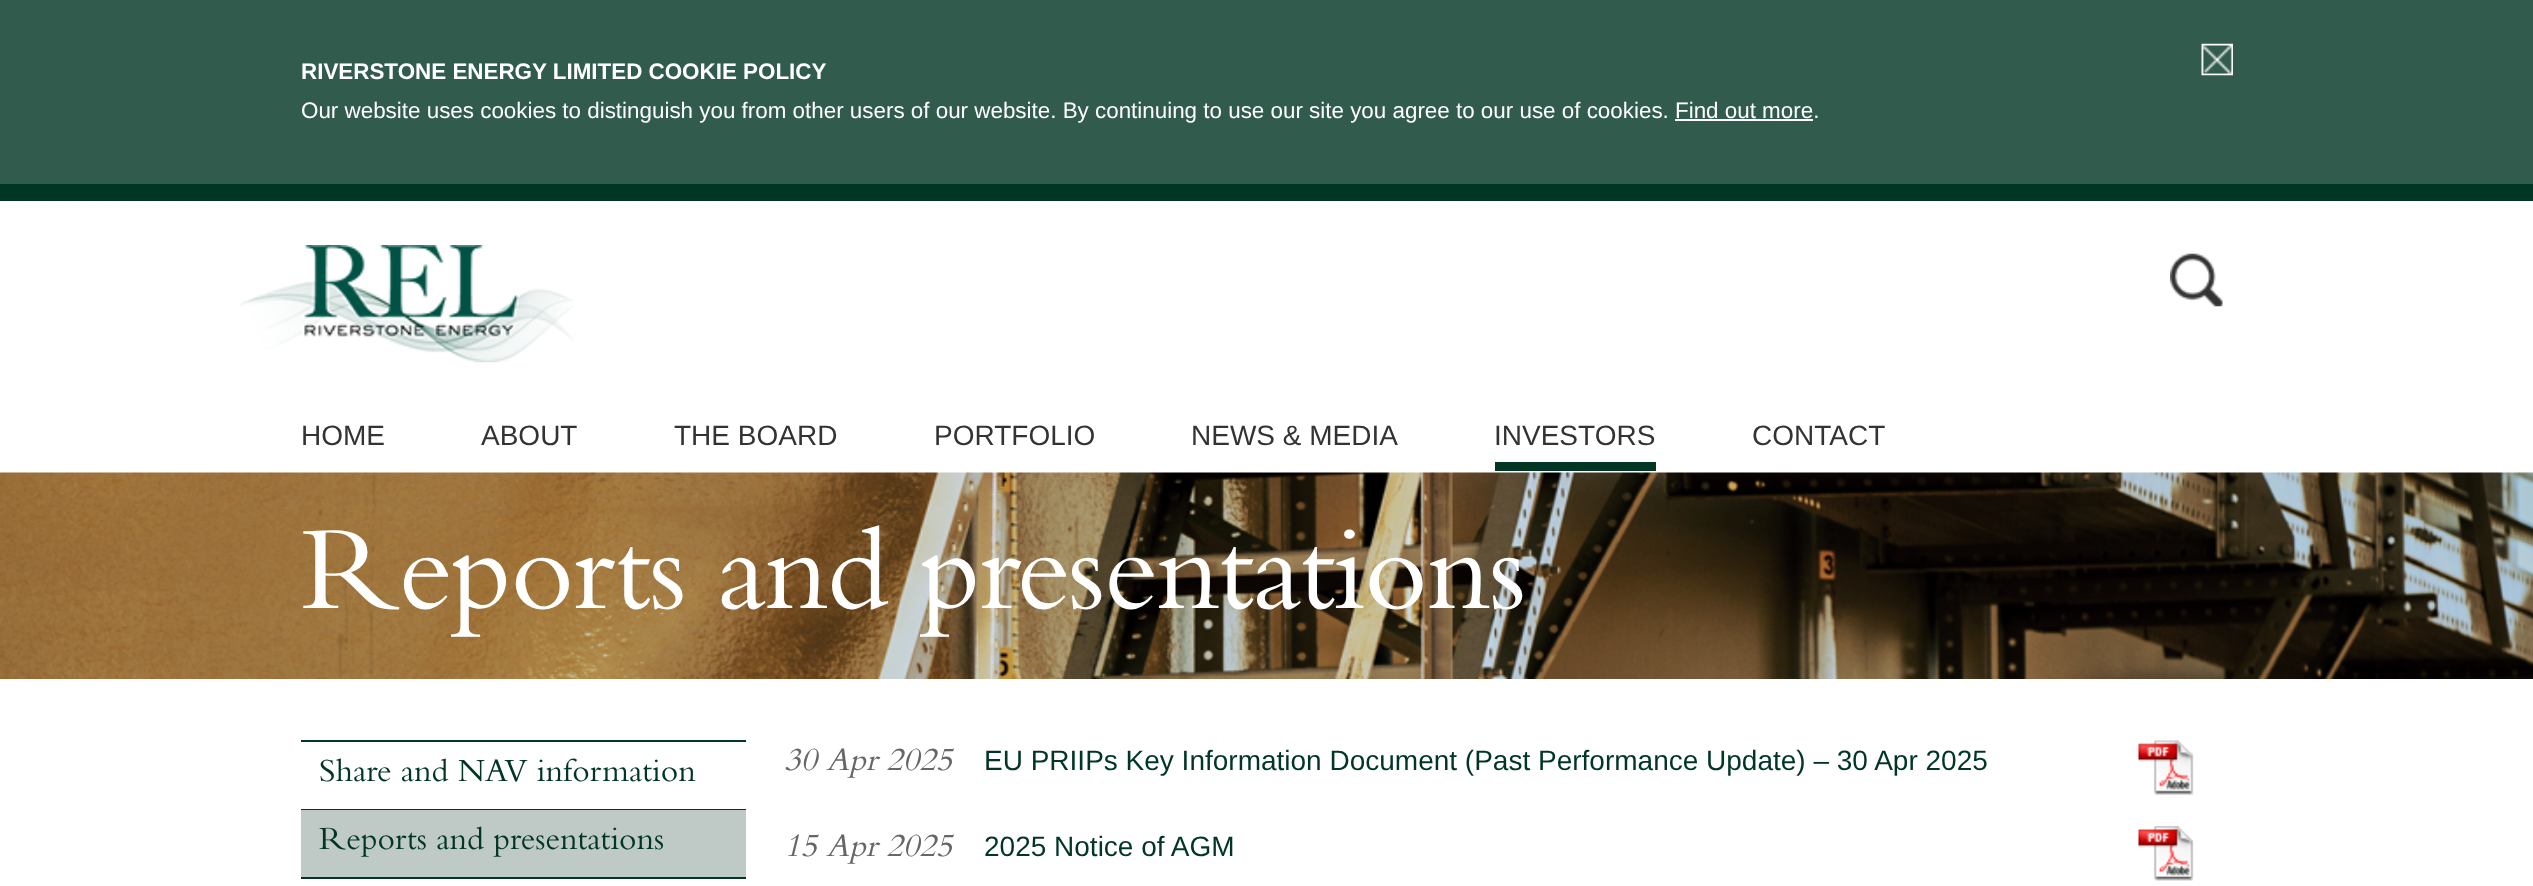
(async () => {
const canvas = document.querySelector("canvas")
canvas.width = 2533
canvas.height = 886
const c = canvas.getContext("2d")
c.miterLimit = 4
c.fontKerning = "normal"
function T(s,x,y){c.fillText(s,x,y)}
function R(x,y,w,h){c.fillRect(x,y,w,h)}
async function I(src,x,y,w,h){const img=new Image();img.src=src;await img.decode();c.drawImage(img,x,y,w,h)}
c.fillStyle="#fff"
R(0,0,2533,886)
c.fillStyle="#315b4d"
R(0,0,2533,184)
c.fillStyle="#013624"
R(0,184,2533,17)
await I("1.png",2201,43,32,33)
c.font="bold 22.4px Liberation Sans"
c.fillStyle="#fff"
T("RIVERSTONE ENERGY LIMITED COOKIE POLICY",301,79)
c.font="22.4px Liberation Sans"
T("Our website uses cookies to distinguish you from other users of our website. By continuing to use our site you agree to our use of cookies.",301,118)
T("Find out more.",1675,118)
R(1675,119,138,2)
await I("2.png",240,245,334,118)
await I("3.png",2170,253,53,54)
c.font="28px Liberation Sans"
c.fillStyle="#333"
T("HOME",301,445)
T("ABOUT",481,445)
T("THE BOARD",674,445)
T("PORTFOLIO",934,445)
T("NEWS & MEDIA",1191,445)
T("INVESTORS",1494,445)
c.fillStyle="#013624"
R(1495,462,161,9)
c.fillStyle="#333"
T("CONTACT",1752,445)
await I("4.png",0,472,2533,207)
c.letterSpacing="-1.75px"
c.font="123.25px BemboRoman"
c.fillStyle="#fff"
T("Reports and presentations",301,608)
c.fillStyle="#013624"
R(301,740,445,2)
R(301,809,445,1)
c.letterSpacing="0px"
c.font="33.6px BemboRoman"
T("Share and NAV information",319,781)
R(301,877,445,2)
c.fillStyle="#bfcac6"
R(301,810,445,67)
c.fillStyle="#013624"
T("Reports and presentations",319,849)
c.font="italic 33.6px BemboRoman"
c.fillStyle="#666"
T("30 Apr 2025",784,770)
c.font="28px Liberation Sans"
c.fillStyle="#013624"
T("EU PRIIPs Key Information Document (Past Performance Update) – 30 Apr 2025",984,770)
await I("5.png",2138,740,56,55)
c.font="italic 33.6px BemboRoman"
c.fillStyle="#666"
T("15 Apr 2025",784,856)
c.font="28px Liberation Sans"
c.fillStyle="#013624"
T("2025 Notice of AGM",984,856)
await I("6.png",2138,826,56,55)
})()
